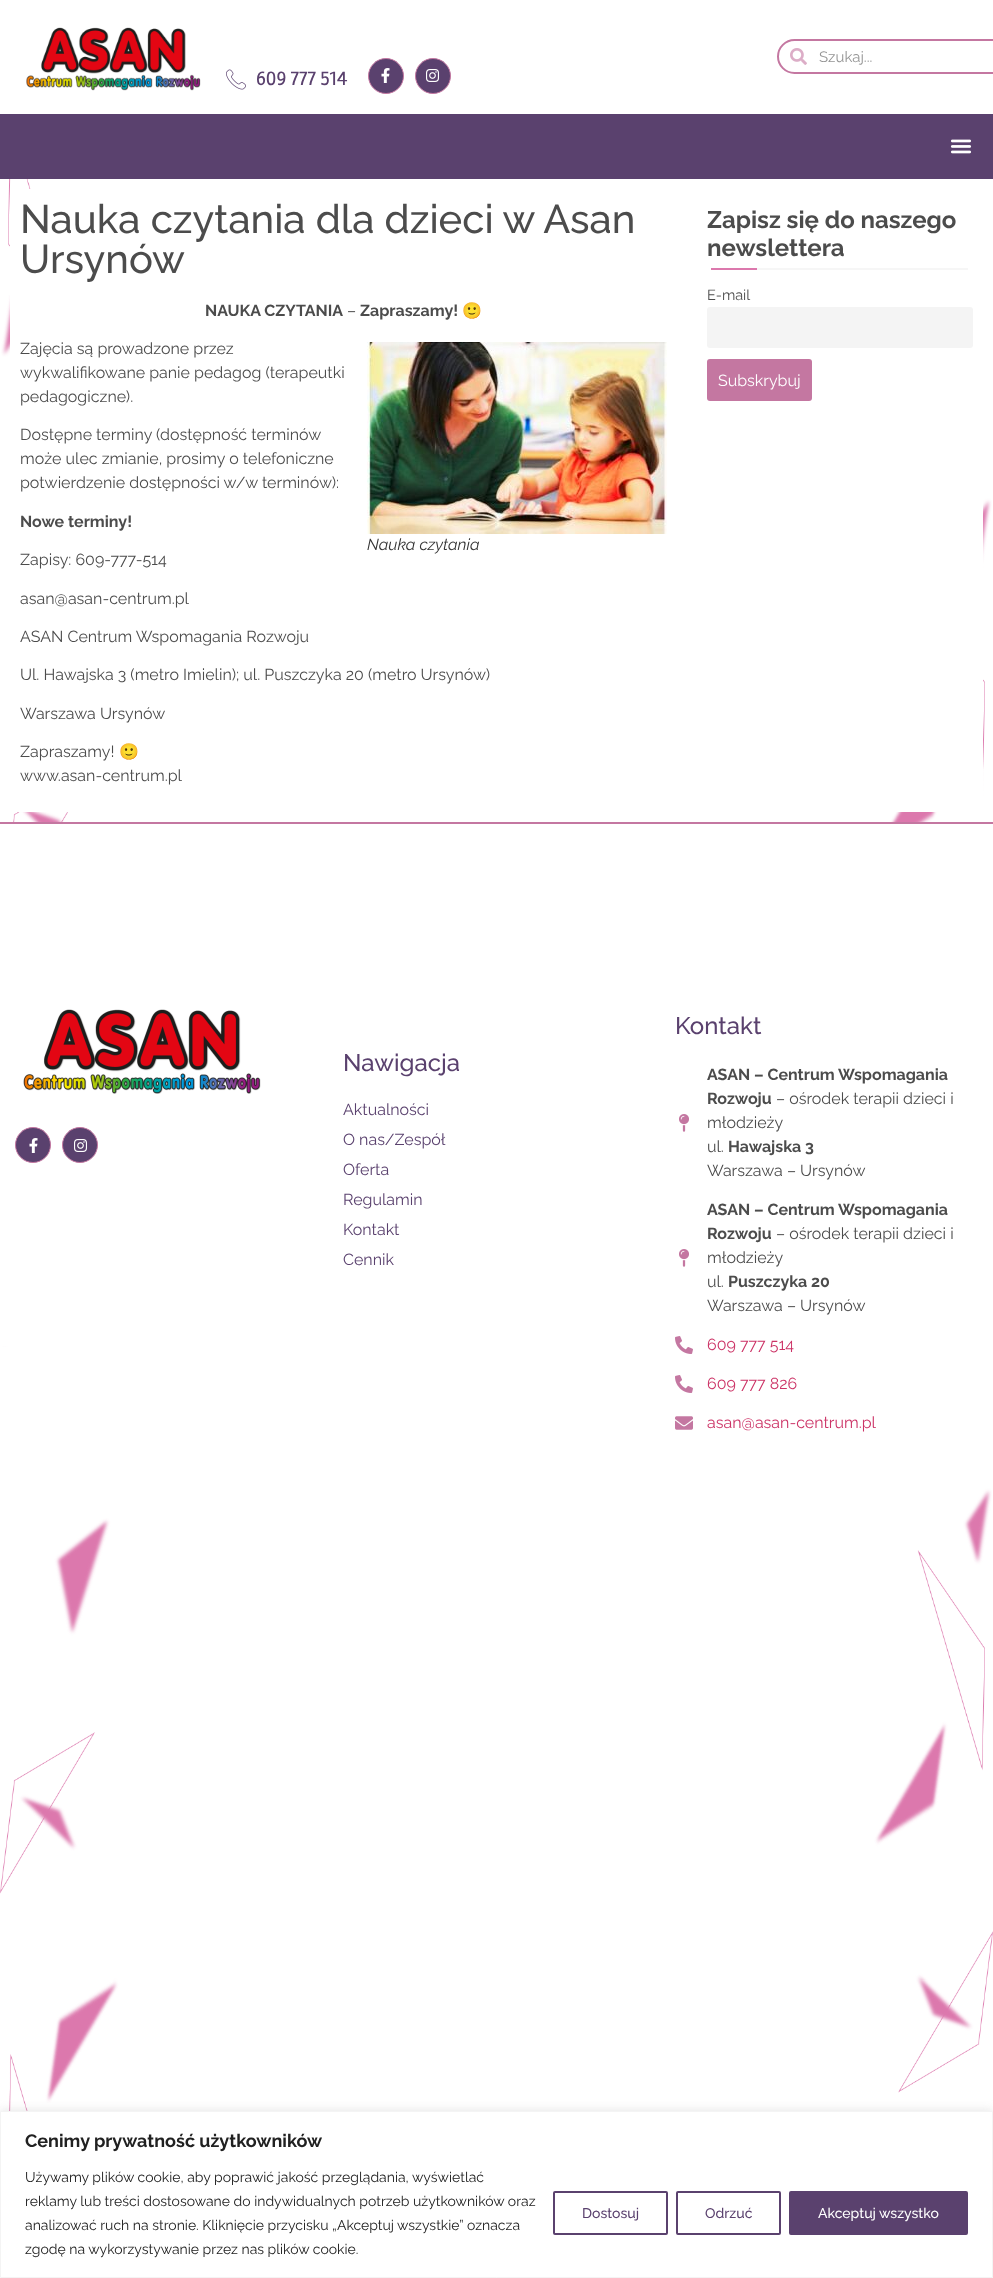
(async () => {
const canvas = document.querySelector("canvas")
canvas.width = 993
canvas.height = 2278
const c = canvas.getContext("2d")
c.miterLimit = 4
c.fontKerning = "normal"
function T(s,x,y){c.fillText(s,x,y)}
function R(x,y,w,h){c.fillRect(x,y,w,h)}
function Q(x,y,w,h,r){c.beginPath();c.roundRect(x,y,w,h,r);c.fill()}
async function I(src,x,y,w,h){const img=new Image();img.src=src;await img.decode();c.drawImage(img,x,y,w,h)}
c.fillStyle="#fff"
R(0,0,993,2278)
c.beginPath()
c.roundRect(778,40,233,33,16.5)
c.strokeStyle="#c477a1"
c.lineWidth=2
c.stroke()
await I("1.png",790,48,17,17)
c.font="15px Raleway"
c.fillStyle="#949494"
T("Szukaj...",819,62)
await I("2.png",26,27,175,64)
await I("3.png",226,69,20,21)
c.font="20px Rambla"
c.fillStyle="#5a416e"
T("609 777 514",256,85)
c.beginPath()
c.arc(386,76,17.5,0,7)
c.fill()
c.lineWidth=1
c.stroke()
await I("4.png",381,68,9,15)
c.beginPath()
c.arc(433,76,17.5,0,7)
c.fill()
c.stroke()
await I("5.png",426,69,14,13)
R(0,114,993,65)
await I("6.png",950,139,22,15)
await I("7.png",0,179,993,1932)
await I("8.png",1,295,991,1808)
c.fillStyle="#fff"
R(10,189,973,623)
c.font="500 40px Raleway"
c.fillStyle="#4c4c4c"
T("Nauka czytania dla dzieci w Asan",20,233)
T("Ursynów",20,273)
c.font="bold 16px Raleway"
T("NAUKA CZYTANIA",205,316)
c.font="16px Raleway"
T("–",347,316)
c.font="bold 16px Raleway"
T("Zapraszamy!",360,316)
c.font="16px Noto Color Emoji"
T("🙂",462,316)
c.font="16px Raleway"
T("Zajęcia są prowadzone przez",20,354)
T("wykwalifikowane panie pedagog (terapeutki",20,378)
T("pedagogiczne).",20,402)
T("Dostępne terminy (dostępność terminów",20,440)
T("może ulec zmianie, prosimy o telefoniczne",20,464)
T("potwierdzenie dostępności w/w terminów):",20,488)
c.font="bold 16px Raleway"
T("Nowe terminy!",20,527)
await I("9.png",367,342,300,192)
c.font="italic 16px Raleway"
c.fillStyle="#333"
T("Nauka czytania",367,550)
c.font="16px Raleway"
c.fillStyle="#4c4c4c"
T("Zapisy: 609-777-514",20,565)
T("asan@asan-centrum.pl",20,604)
T("ASAN Centrum Wspomagania Rozwoju",20,642)
T("Ul. Hawajska 3 (metro Imielin); ul. Puszczyka 20 (metro Ursynów)",20,680)
T("Warszawa Ursynów",20,719)
T("Zapraszamy!",20,757)
c.font="16px Noto Color Emoji"
T("🙂",119,757)
c.font="16px Raleway"
T("www.asan-centrum.pl",20,781)
await I("10.png",711,268,257,2)
c.font="bold 24px Raleway"
T("Zapisz się do naszego",707,228)
T("newslettera",707,256)
c.font="14.5px Raleway"
T("E-mail",707,300)
c.fillStyle="#f4f4f4"
Q(707,307,266,41,3)
c.fillStyle="#c477a1"
Q(707,359,105,42,3)
c.font="16px Raleway"
c.fillStyle="#fff"
T("Subskrybuj",718,386)
R(0,824,993,522)
c.fillStyle="#c477a1"
R(0,822,993,2)
await I("11.png",23,1009,238,85)
c.fillStyle="#5a416e"
c.beginPath()
c.arc(33,1145,17.5,0,7)
c.fill()
c.stroke()
await I("4.png",29,1138,9,15)
c.beginPath()
c.arc(80,1145,17.5,0,7)
c.fill()
c.stroke()
await I("5.png",74,1139,14,13)
c.font="500 24px Raleway"
T("Nawigacja",343,1071)
c.font="16px Raleway"
T("Aktualności",343,1115)
T("O nas/Zespół",343,1145)
T("Oferta",343,1175)
T("Regulamin",343,1205)
T("Kontakt",343,1235)
T("Cennik",343,1265)
c.font="500 24px Raleway"
T("Kontakt",675,1034)
await I("12.png",679,1114,10,18)
c.font="bold 16px Raleway"
c.fillStyle="#4c4c4c"
T("ASAN – Centrum Wspomagania",707,1080)
T("Rozwoju",707,1104)
c.font="16px Raleway"
T("– ośrodek terapii dzieci i",776,1104)
T("młodzieży",707,1128)
T("ul.",707,1152)
c.font="bold 16px Raleway"
T("Hawajska 3",728,1152)
c.font="16px Raleway"
T("Warszawa – Ursynów",707,1176)
await I("12.png",679,1249,10,18)
c.font="bold 16px Raleway"
T("ASAN – Centrum Wspomagania",707,1215)
T("Rozwoju",707,1239)
c.font="16px Raleway"
T("– ośrodek terapii dzieci i",776,1239)
T("młodzieży",707,1263)
T("ul.",707,1287)
c.font="bold 16px Raleway"
T("Puszczyka 20",728,1287)
c.font="16px Raleway"
T("Warszawa – Ursynów",707,1311)
await I("13.png",675,1336,18,18)
c.fillStyle="#c36"
T("609 777 514",707,1350)
await I("13.png",675,1375,18,18)
T("609 777 826",707,1389)
await I("14.png",675,1416,18,14)
T("asan@asan-centrum.pl",707,1428)
c.fillStyle="#acabab4d"
c.filter="blur(5px)"
c.beginPath()
c.rect(0,2110,993,167)
c.fill()
c.filter="none"
c.fillStyle="#fff"
c.beginPath()
c.rect(.5,2111.5,992,166)
c.fill()
c.strokeStyle="#f4f4f4"
c.stroke()
c.font="bold 18px Raleway"
c.fillStyle="#212121"
T("Cenimy prywatność użytkowników",25,2147)
c.font="14px Raleway"
T("Używamy plików cookie, aby poprawić jakość przeglądania, wyświetlać",25,2182)
T("reklamy lub treści dostosowane do indywidualnych potrzeb użytkowników oraz",25,2206)
T("analizować ruch na stronie. Kliknięcie przycisku „Akceptuj wszystkie” oznacza",25,2230)
T("zgodę na wykorzystywanie przez nas plików cookie.",25,2254)
c.beginPath()
c.roundRect(554,2192,113,42,1)
c.strokeStyle="#5a416e"
c.lineWidth=2
c.stroke()
c.font="500 14px Raleway"
c.fillStyle="#5a416e"
T("Dostosuj",582,2218)
c.beginPath()
c.roundRect(677,2192,103,42,1)
c.stroke()
T("Odrzuć",705,2218)
c.beginPath()
c.roundRect(790,2192,177,42,1)
c.fill()
c.stroke()
c.fillStyle="#fff"
T("Akceptuj wszystko",818,2218)
})()
